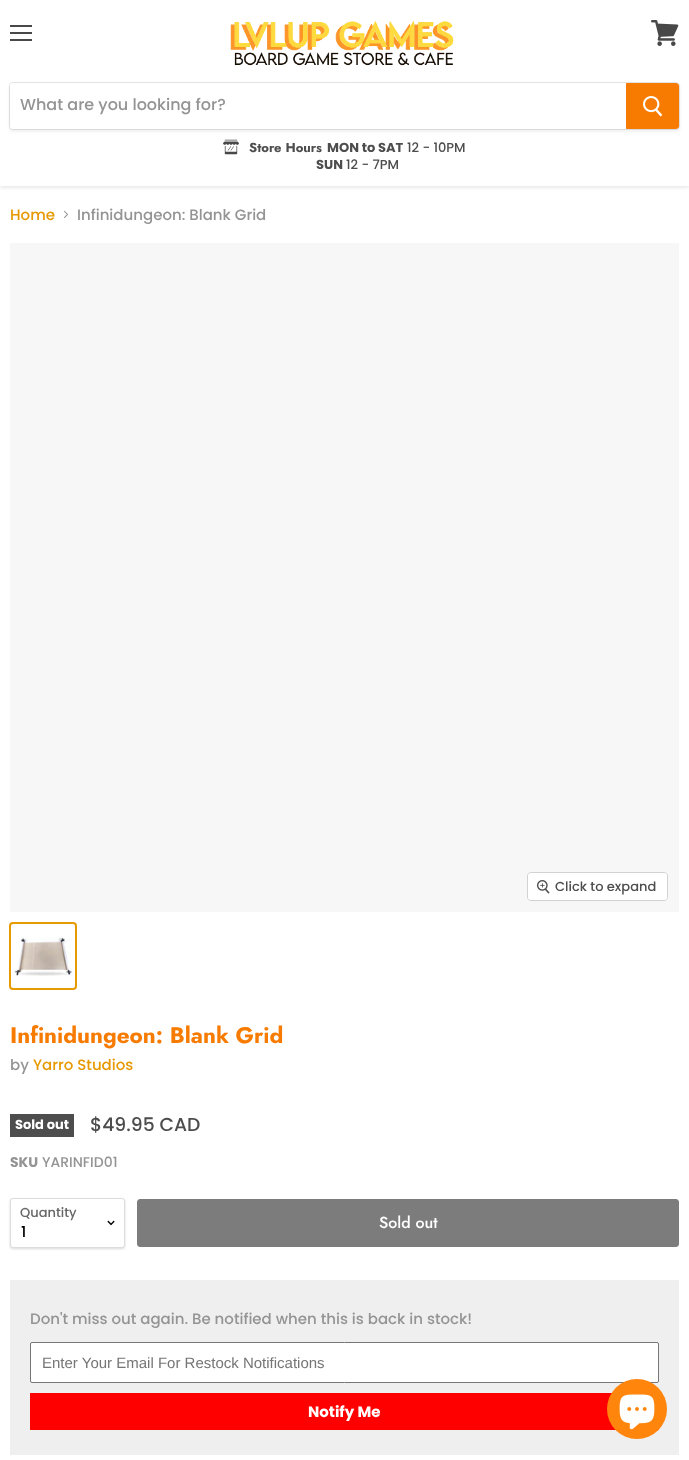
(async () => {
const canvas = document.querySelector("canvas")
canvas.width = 689
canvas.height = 1460
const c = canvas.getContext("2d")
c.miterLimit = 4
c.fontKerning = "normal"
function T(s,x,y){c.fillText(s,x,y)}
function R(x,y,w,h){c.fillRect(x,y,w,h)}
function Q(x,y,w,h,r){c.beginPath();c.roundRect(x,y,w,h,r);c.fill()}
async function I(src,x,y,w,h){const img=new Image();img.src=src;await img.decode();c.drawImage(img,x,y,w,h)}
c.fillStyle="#fff"
R(0,0,689,1460)
c.save()
c.beginPath()
c.rect(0,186,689,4)
c.clip()
c.fillStyle="#7f7f7f40"
c.filter="blur(2px)"
c.beginPath()
c.rect(0,1,689,186)
c.fill()
c.filter="none"
c.restore()
c.fillStyle="#484848"
R(10,25,22,2)
R(10,32,22,2)
R(10,39,22,2)
await I("1.png",651,20,28,26)
await I("2.png",230,21,224,45)
c.fillStyle="#7f7f7f1c"
c.filter="blur(1.5px)"
c.beginPath()
c.roundRect(9,84,671,48,4)
c.fill()
c.filter="none"
c.beginPath()
c.roundRect(9.5,82.5,670,47,3.5)
c.strokeStyle="#7f7f7f33"
c.stroke()
c.fillStyle="#fff"
c.beginPath()
c.roundRect(10,83,616,46,[3,0,0,3])
c.fill()
c.font="500 16px Poppins"
c.fillStyle="#949494"
T("What are you looking for?",20,110)
c.fillStyle="#f77b00"
c.beginPath()
c.roundRect(626.5,83.5,52,45,[0,2.5,2.5,0])
c.fill()
c.strokeStyle="#f77b00"
c.stroke()
await I("3.png",643,96,20,21)
await I("4.png",223,139,16,16)
c.font="bold 13px Jost"
c.fillStyle="#4d4d4d"
T("Store Hours",249,152)
c.font="bold 13px Poppins"
T("MON to SAT",327,152)
c.font="500 13px Poppins"
T("12 - 10PM",407,152)
c.font="bold 13px Poppins"
T("SUN",316,169)
c.font="500 13px Poppins"
T("12 - 7PM",346,169)
c.font="500 15px Poppins"
c.fillStyle="#e69900"
T("Home",10,220)
await I("5.png",64,210,4,8)
c.fillStyle="#949494"
T("Infinidungeon: Blank Grid",77,220)
c.fillStyle="#f7f7f7"
R(10,243,669,669)
c.beginPath()
c.roundRect(527.5,872.5,140,28,3.5)
c.strokeStyle="#d2d2d2"
c.stroke()
c.fillStyle="#ffffffe6"
Q(528,873,139,27,3)
await I("6.png",537,880,13,14)
c.font="500 13px Poppins"
c.fillStyle="#4d4d4d"
T("Click to expand",555,891)
c.beginPath()
c.roundRect(10,923,66,66,3)
c.strokeStyle="#e69900"
c.lineWidth=2
c.stroke()
await I("7.png",14,937,59,39)
c.font="bold 22.5px Jost"
c.fillStyle="#f77b00"
T("Infinidungeon: Blank Grid",10,1043)
c.font="500 15px Poppins"
c.fillStyle="#949494"
T("by",10,1070)
c.fillStyle="#e69900"
T("Yarro Studios",33,1070)
c.fillStyle="#4d4d4d"
R(10,1114,64,23)
c.font="bold 13px Poppins"
c.fillStyle="#fff"
T("Sold out",15,1129)
c.font="500 18.75px Poppins"
c.fillStyle="#4d4d4d"
T("$49.95 CAD",90,1131)
c.font="bold 14px Poppins"
c.fillStyle="#949494"
T("SKU",10,1167)
c.font="500 14px Poppins"
T("YARINFID01",42,1167)
c.fillStyle="#00000026"
c.filter="blur(1px)"
c.beginPath()
c.roundRect(10,1199,115,50,3)
c.fill()
c.filter="none"
c.fillStyle="#fff"
c.beginPath()
c.roundRect(10.5,1198.5,114,49,2.5)
c.fill()
c.strokeStyle="#ddd"
c.lineWidth=1
c.stroke()
c.font="500 13px Poppins"
c.fillStyle="#666"
T("Quantity",20,1217)
await I("8.png",107,1220,8,6)
c.font="500 15px Poppins"
c.fillStyle="#000"
T("1",21,1237)
c.fillStyle="#7c7c7c"
c.beginPath()
c.roundRect(137.5,1199.5,541,47,2.5)
c.fill()
c.strokeStyle="#7c7c7c"
c.stroke()
c.font="500 16px Jost"
c.fillStyle="#fff"
T("Sold out",379,1228)
c.fillStyle="#efefef"
R(10,1280,669,175)
c.font="500 15px Poppins"
c.fillStyle="#949494"
T("Don't miss out again. Be notified when this is back in stock!",30,1324)
c.fillStyle="#fff"
c.beginPath()
c.roundRect(30.5,1342.5,628,40,1.5)
c.fill()
c.strokeStyle="#767676"
c.stroke()
c.font="15px Liberation Sans"
c.fillStyle="#757575"
T("Enter Your Email For Restock Notifications",42,1368)
c.fillStyle="#f00"
R(30,1393,629,37)
c.font="bold 15px Poppins"
c.fillStyle="#fff"
T("Notify Me",308,1417)
c.fillStyle="#ff850d"
c.beginPath()
c.arc(637,1409,30,0,7)
c.fill()
await I("9.png",619,1394,36,36)
})()
